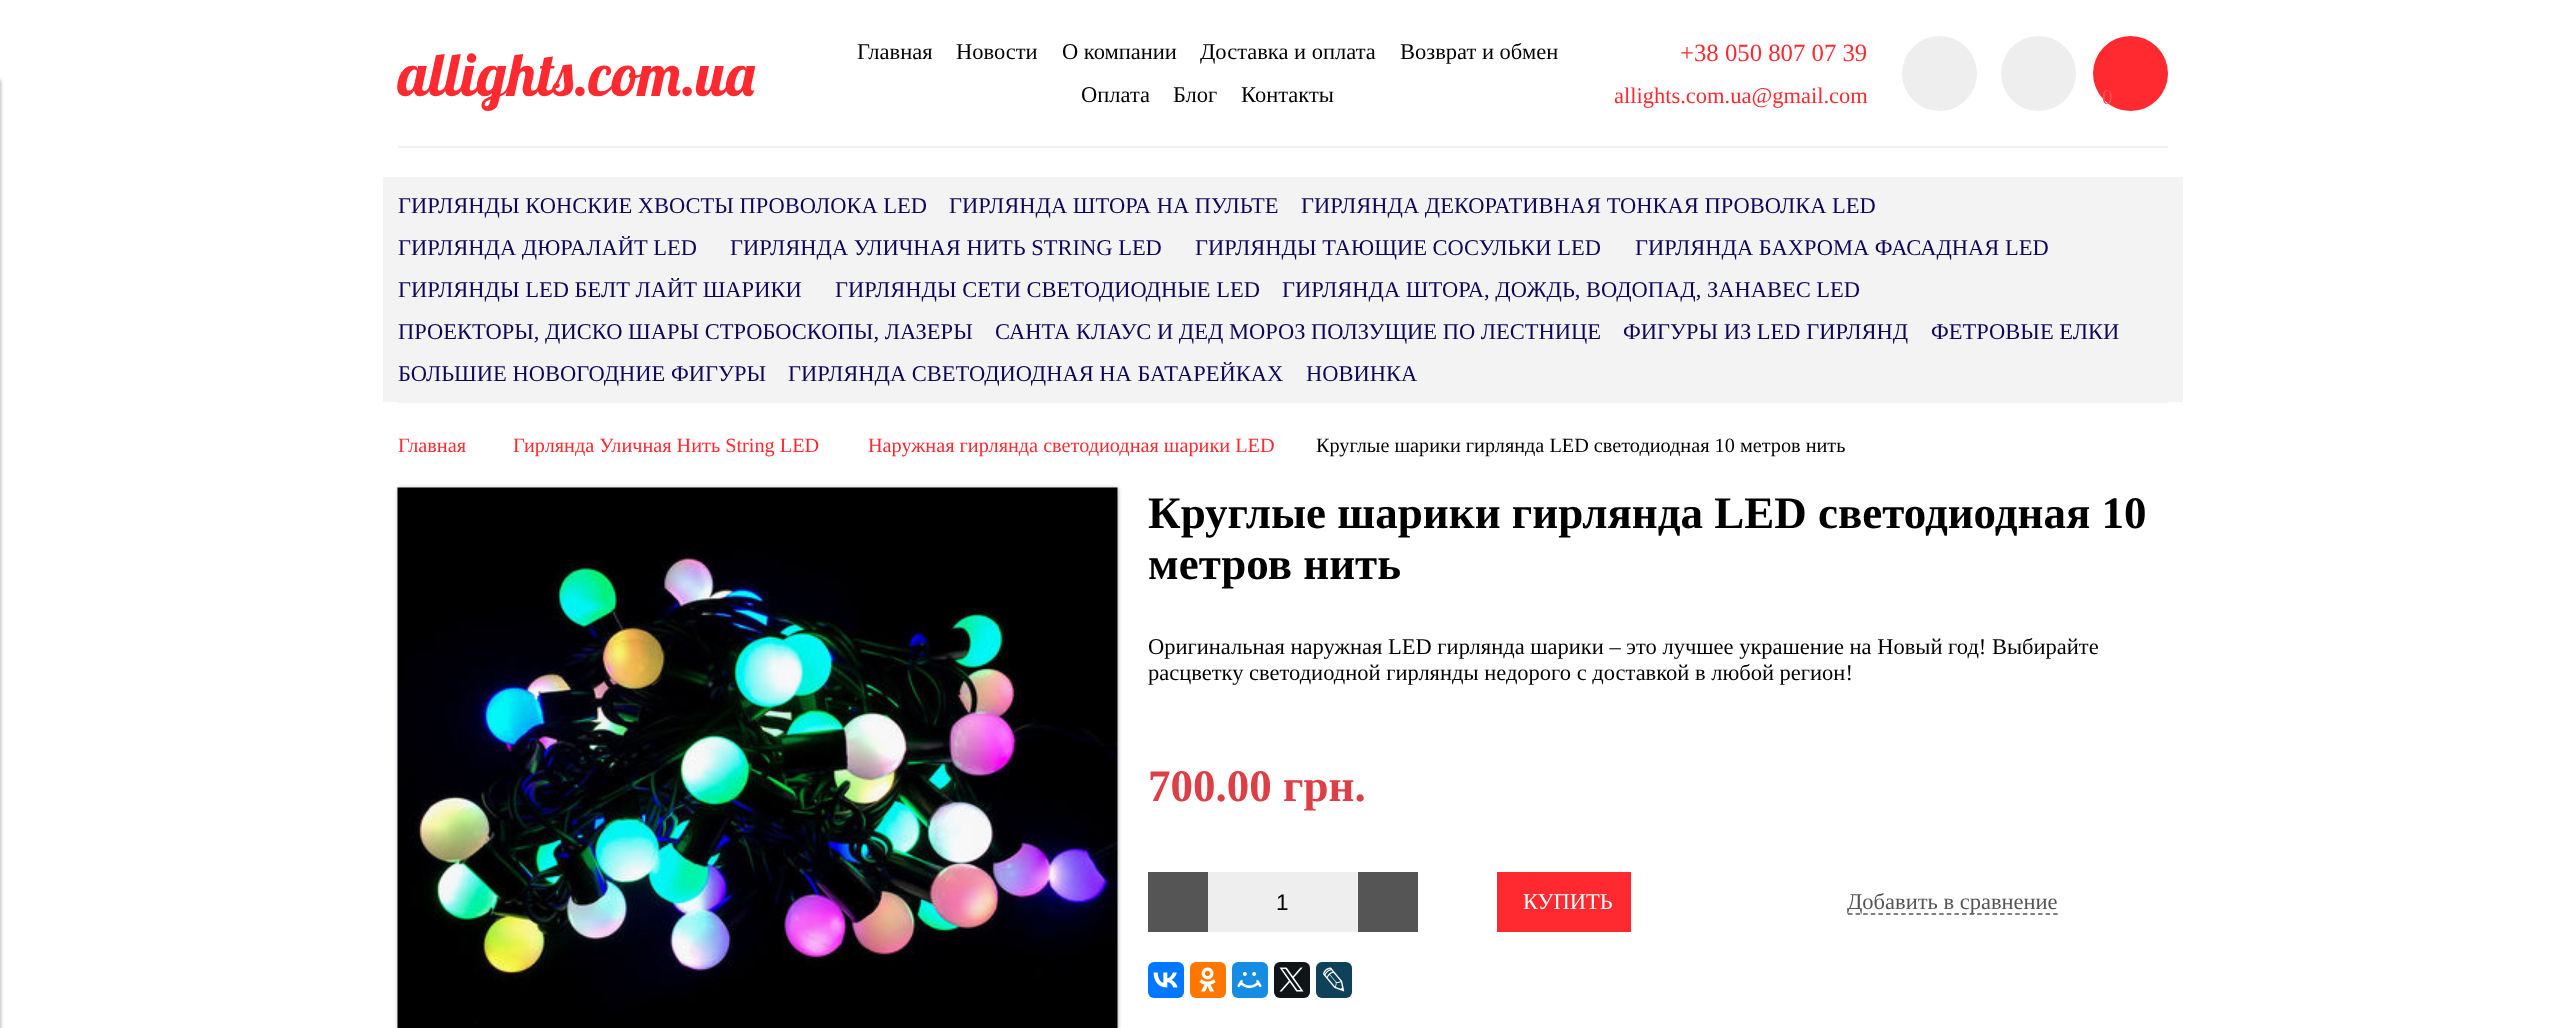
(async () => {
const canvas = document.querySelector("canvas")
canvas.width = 2564
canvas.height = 1028
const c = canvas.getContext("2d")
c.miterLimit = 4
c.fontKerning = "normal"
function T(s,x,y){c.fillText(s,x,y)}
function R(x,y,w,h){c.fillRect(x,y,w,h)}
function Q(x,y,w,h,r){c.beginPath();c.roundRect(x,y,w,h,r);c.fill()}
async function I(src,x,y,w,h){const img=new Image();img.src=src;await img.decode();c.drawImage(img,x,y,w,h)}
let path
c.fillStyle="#fff"
R(0,0,2564,1028)
c.fillStyle="#00000066"
c.filter="blur(2px)"
c.beginPath()
c.rect(-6,80,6,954)
c.fill()
c.filter="none"
c.font="60px Lobster"
c.fillStyle="#ff2930"
T("allights.com.ua",398,96)
c.font="22.5px Liberation Serif"
c.fillStyle="#000"
T("Главная",857,59)
T("Новости",956,59)
T("О компании",1062,59)
T("Доставка и оплата",1200,59)
T("Возврат и обмен",1400,59)
T("Оплата",1081,102)
T("Блог",1173,102)
T("Контакты",1241,102)
c.font="24.75px Liberation Serif"
c.fillStyle="#ff2930"
T("+38 050 807 07 39",1680,61)
c.font="22.5px Liberation Serif"
T("allights.com.ua@gmail.com",1614,103)
c.fillStyle="#eee"
c.beginPath()
c.arc(1939.5,73.5,37.5,0,7)
c.fill()
c.beginPath()
c.arc(2038.5,73.5,37.5,0,7)
c.fill()
c.fillStyle="#ff2930"
c.beginPath()
c.arc(2130.5,73.5,37.5,0,7)
c.fill()
c.font="21px Liberation Serif"
c.fillStyle="#ff5055"
T("0",2102,104)
c.fillStyle="#f2f2f2"
R(398,146,1770,2)
c.fillStyle="#f3f3f3"
R(383,177,1800,225)
c.font="22.5px Liberation Serif"
c.fillStyle="#0e0559"
T("ГИРЛЯНДЫ КОНСКИЕ ХВОСТЫ ПРОВОЛОКА LED",398,213)
T("ГИРЛЯНДА ШТОРА НА ПУЛЬТЕ",949,213)
T("ГИРЛЯНДА ДЕКОРАТИВНАЯ ТОНКАЯ ПРОВОЛКА LED",1301,213)
T("ГИРЛЯНДА ДЮРАЛАЙТ LED",398,255)
T("ГИРЛЯНДА УЛИЧНАЯ НИТЬ STRING LED",730,255)
T("ГИРЛЯНДЫ ТАЮЩИЕ СОСУЛЬКИ LED",1195,255)
T("ГИРЛЯНДА БАХРОМА ФАСАДНАЯ LED",1635,255)
T("ГИРЛЯНДЫ LED БЕЛТ ЛАЙТ ШАРИКИ",398,297)
T("ГИРЛЯНДЫ СЕТИ СВЕТОДИОДНЫЕ LED",835,297)
T("ГИРЛЯНДА ШТОРА, ДОЖДЬ, ВОДОПАД, ЗАНАВЕС LED",1282,297)
T("ПРОЕКТОРЫ, ДИСКО ШАРЫ СТРОБОСКОПЫ, ЛАЗЕРЫ",398,339)
T("САНТА КЛАУС И ДЕД МОРОЗ ПОЛЗУЩИЕ ПО ЛЕСТНИЦЕ",995,339)
T("ФИГУРЫ ИЗ LED ГИРЛЯНД",1623,339)
T("ФЕТРОВЫЕ ЕЛКИ",1931,339)
T("БОЛЬШИЕ НОВОГОДНИЕ ФИГУРЫ",398,381)
T("ГИРЛЯНДА СВЕТОДИОДНАЯ НА БАТАРЕЙКАХ",788,381)
T("НОВИНКА",1306,381)
c.fillStyle="#f2f2f2"
R(398,402,1770,1)
c.font="20.25px Liberation Serif"
c.fillStyle="#ff2930"
T("Главная",398,452)
T("Гирлянда Уличная Нить String LED",513,452)
T("Наружная гирлянда светодиодная шарики LED",868,452)
c.fillStyle="#000"
T("Круглые шарики гирлянда LED светодиодная 10 метров нить",1316,452)
c.fillStyle="#0000004d"
c.filter="blur(2px)"
c.beginPath()
c.rect(398,488,720,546)
c.fill()
c.filter="none"
await I("1.png",397,487,721,541)
c.font="bold 45px Liberation Serif"
c.fillStyle="#000"
T("Круглые шарики гирлянда LED светодиодная 10",1148,528)
T("метров нить",1148,579)
c.font="22.5px Liberation Serif"
T("Оригинальная наружная LED гирлянда шарики – это лучшее украшение на Новый год! Выбирайте",1148,654)
T("расцветку светодиодной гирлянды недорого с доставкой в любой регион!",1148,680)
c.font="bold 45px Liberation Serif"
c.fillStyle="#dd3f46"
T("700.00 грн.",1148,801)
c.fillStyle="#555"
R(1148,872,60,60)
c.fillStyle="#eee"
R(1208,872,150,60)
c.font="22.5px Liberation Sans"
c.fillStyle="#000"
T("1",1276,910)
c.fillStyle="#555"
R(1358,872,60,60)
c.fillStyle="#ff2930"
R(1497,872,134,60)
c.font="22.5px Liberation Serif"
c.fillStyle="#fff"
T("КУПИТЬ",1523,909)
path = new Path2D("M1848 914h210")
c.strokeStyle="#555"
c.lineWidth=1.5
c.setLineDash([4.5,3.1])
c.stroke(path)
c.fillStyle="#555"
T("Добавить в сравнение",1847,909)
c.fillStyle="#07f"
Q(1148,962,36,36,6)
await I("2.png",1153,972,25,16)
c.fillStyle="#f70"
Q(1190,962,36,36,6)
await I("3.png",1199,967,17,25)
c.fillStyle="#168de2"
Q(1232,962,36,36,6)
await I("4.png",1237,972,25,16)
c.fillStyle="#0f1419"
Q(1274,962,36,36,6)
await I("5.png",1279,967,25,25)
c.fillStyle="#0d425a"
Q(1316,962,36,36,6)
await I("6.png",1323,967,22,25)
})()
